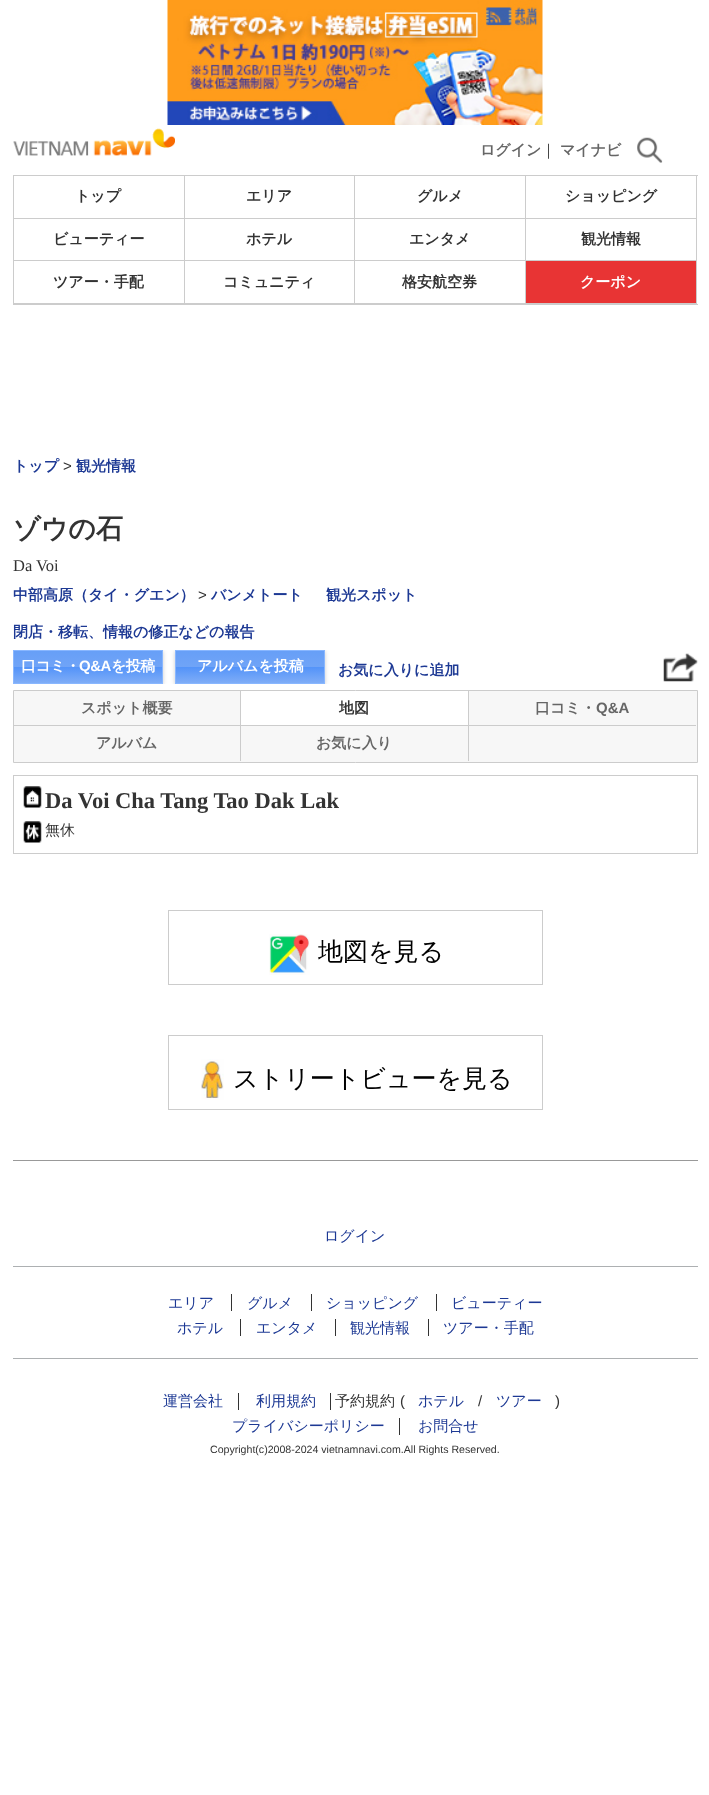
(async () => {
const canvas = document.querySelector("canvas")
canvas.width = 709
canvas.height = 1795
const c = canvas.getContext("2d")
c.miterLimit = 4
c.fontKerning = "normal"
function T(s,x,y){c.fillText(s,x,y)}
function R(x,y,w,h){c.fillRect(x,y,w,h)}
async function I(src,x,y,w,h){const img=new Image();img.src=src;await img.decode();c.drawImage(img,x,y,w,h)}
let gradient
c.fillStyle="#fff"
R(0,0,709,1795)
await I("1.png",167,0,376,125)
await I("2.png",13,128,162,28)
c.font="bold 15px WenQuanYi Zen Hei"
c.fillStyle="#666"
T("ログイン",480,155)
c.font="500 15px WenQuanYi Zen Hei"
c.fillStyle="#333"
T("｜",541,155)
c.font="bold 15px WenQuanYi Zen Hei"
c.fillStyle="#666"
T("マイナビ",560,155)
await I("3.png",637,137,26,26)
c.fillStyle="#ccc"
R(13,175,685,1)
R(13,304,685,1)
R(696,176,1,128)
R(13,176,1,128)
R(184,176,1,128)
R(14,218,171,1)
c.fillStyle="#333"
T("トップ",75,201)
c.fillStyle="#ccc"
R(354,176,1,128)
R(185,218,170,1)
c.fillStyle="#333"
T("エリア",246,201)
c.fillStyle="#ccc"
R(525,176,1,128)
R(355,218,341,1)
c.fillStyle="#333"
T("グルメ",417,201)
T("ショッピング",565,201)
c.fillStyle="#ccc"
R(14,260,682,1)
c.fillStyle="#333"
T("ビューティー",53,244)
T("ホテル",246,244)
T("エンタメ",409,244)
T("観光情報",581,244)
c.fillStyle="#ccc"
R(14,303,682,1)
c.fillStyle="#333"
T("ツアー・手配",53,287)
T("コミュニティ",223,287)
T("格安航空券",402,287)
c.fillStyle="#e83434"
R(526,261,170,42)
c.fillStyle="#fff"
T("クーポン",580,287)
c.fillStyle="#1d3994"
T("トップ",13,471)
c.font="15px Liberation Sans"
c.fillStyle="#333"
T(">",63,471)
c.font="bold 15px WenQuanYi Zen Hei"
c.fillStyle="#1d3994"
T("観光情報",76,471)
c.font="bold 27px WenQuanYi Zen Hei"
c.fillStyle="#333"
T("ゾウの石",13,538)
c.font="16.5px Liberation Serif"
T("Da Voi",13,571)
c.font="bold 15px WenQuanYi Zen Hei"
c.fillStyle="#1d3994"
T("中部高原（タイ・グエン）",13,600)
c.font="15px Liberation Sans"
c.fillStyle="#333"
T(">",198,600)
c.font="bold 15px WenQuanYi Zen Hei"
c.fillStyle="#1d3994"
T("バンメトート",211,600)
T("観光スポット",326,600)
T("閉店・移転、情報の修正などの報告",13,637)
c.fillStyle="#f7f7f7"
c.beginPath()
c.rect(13.5,690.5,684,72)
c.fill()
c.strokeStyle="#ccc"
c.stroke()
c.save()
c.beginPath()
c.rect(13,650,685,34)
c.clip()
c.fillStyle="#00000033"
c.filter="blur(2px)"
c.beginPath()
c.rect(13,651,150,34)
c.fill()
c.filter="none"
c.restore()
gradient = c.createLinearGradient(14,651,14,683)
gradient.addColorStop(0,"#679ff7")
gradient.addColorStop(.5,"#70a4f7")
gradient.addColorStop(.5,"#5393f9")
gradient.addColorStop(1,"#7fadf7")
c.fillStyle = gradient
R(14,651,148,32)
c.strokeStyle="#89b7ff"
c.strokeRect(13.5,650.5,149,33)
c.letterSpacing="-0.5px"
c.fillStyle="#fff"
T("口コミ・",21,671)
c.font="bold 15px Liberation Sans"
T("Q&A",79,671)
c.font="bold 15px WenQuanYi Zen Hei"
T("を投稿",111,671)
c.save()
c.beginPath()
c.rect(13,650,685,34)
c.clip()
c.fillStyle="#00000033"
c.filter="blur(2px)"
c.beginPath()
c.rect(175,651,150,34)
c.fill()
c.filter="none"
c.restore()
gradient = c.createLinearGradient(176,651,176,683)
gradient.addColorStop(0,"#679ff7")
gradient.addColorStop(.5,"#70a4f7")
gradient.addColorStop(.5,"#5393f9")
gradient.addColorStop(1,"#7fadf7")
c.fillStyle = gradient
R(176,651,148,32)
c.strokeRect(175.5,650.5,149,33)
c.letterSpacing="0px"
c.fillStyle="#fff"
T("アルバムを投稿",197,671)
c.fillStyle="#1d3994"
T("お気に入りに追加",338,675)
await I("4.png",663,653,35,29)
c.fillStyle="#ccc"
R(240,691,1,70)
R(14,725,227,1)
c.fillStyle="#666"
T("スポット概要",81,713)
c.fillStyle="#ccc"
R(468,691,1,70)
R(241,725,455,1)
c.fillStyle="#fff"
R(241,691,227,34)
c.fillStyle="#333"
T("地図",339,713)
c.fillStyle="#666"
T("口コミ・",535,713)
c.font="bold 15px Liberation Sans"
T("Q&A",596,713)
c.font="bold 15px WenQuanYi Zen Hei"
T("アルバム",96,748)
T("お気に入り",316,748)
c.strokeStyle="#ccc"
c.strokeRect(13.5,775.5,684,78)
await I("5.png",23,786,19,22)
c.font="bold 22.5px Liberation Serif"
c.fillStyle="#333"
T("Da Voi Cha Tang Tao Dak Lak",45,808)
await I("6.png",23,821,19,22)
c.font="500 15px WenQuanYi Zen Hei"
T("無休",45,835)
c.strokeRect(168.5,910.5,374,74)
await I("7.png",269,934,41,41)
c.font="500 25px WenQuanYi Zen Hei"
c.fillStyle="#000"
T("地図を見る",318,960)
c.strokeRect(168.5,1035.5,374,74)
await I("8.png",201,1059,23,41)
T("ストリートビューを見る",233,1087)
c.fillStyle="#999"
R(13,1160,685,1)
c.fillStyle="#adb0b2"
R(13,1266,685,1)
c.font="500 15px WenQuanYi Zen Hei"
c.fillStyle="#1d3994"
T("ログイン",324,1241)
T("エリア",168,1308)
c.fillStyle="#333"
R(231,1294,1,17)
c.fillStyle="#1d3994"
T("グルメ",247,1308)
c.fillStyle="#333"
R(311,1294,1,17)
c.fillStyle="#1d3994"
T("ショッピング",326,1308)
c.fillStyle="#333"
R(436,1294,1,17)
c.fillStyle="#1d3994"
T("ビューティー",451,1308)
c.fillStyle="#adb0b2"
R(13,1358,685,1)
c.fillStyle="#1d3994"
T("ホテル",177,1333)
c.fillStyle="#333"
R(240,1319,1,17)
c.fillStyle="#1d3994"
T("エンタメ",256,1333)
c.fillStyle="#333"
R(335,1319,1,17)
c.fillStyle="#1d3994"
T("観光情報",350,1333)
c.fillStyle="#333"
R(428,1319,1,17)
c.fillStyle="#1d3994"
T("ツアー・手配",443,1333)
T("運営会社",163,1406)
c.fillStyle="#333"
R(238,1393,1,17)
c.fillStyle="#1d3994"
T("利用規約",256,1406)
c.fillStyle="#333"
R(330,1393,1,17)
T("予約規約",335,1406)
c.font="15px Liberation Sans"
T("(",400,1406)
c.font="500 15px WenQuanYi Zen Hei"
c.fillStyle="#1d3994"
T("ホテル",418,1406)
c.font="15px Liberation Sans"
c.fillStyle="#333"
T("/",478,1406)
c.font="500 15px WenQuanYi Zen Hei"
c.fillStyle="#1d3994"
T("ツアー",496,1406)
c.font="15px Liberation Sans"
c.fillStyle="#333"
T(")",555,1406)
c.font="500 15px WenQuanYi Zen Hei"
c.fillStyle="#1d3994"
T("プライバシーポリシー",232,1431)
c.fillStyle="#333"
R(399,1418,1,17)
c.fillStyle="#1d3994"
T("お問合せ",418,1431)
c.font="10.6px Liberation Sans"
c.fillStyle="#333"
T("Copyright(c)2008-2024 vietnamnavi.com.All Rights Reserved.",210,1453)
})()
